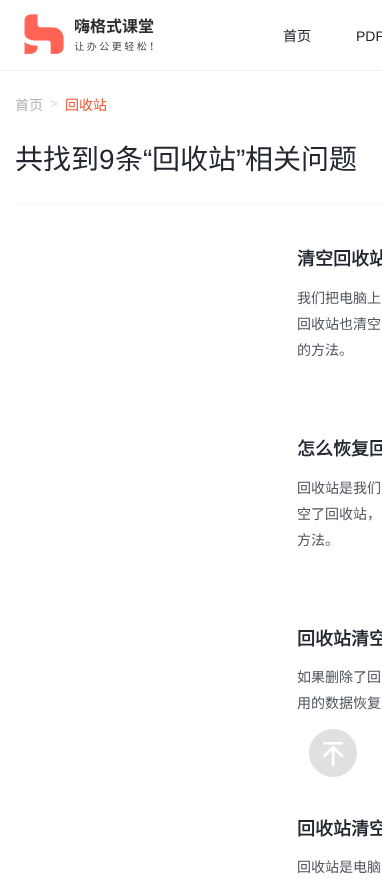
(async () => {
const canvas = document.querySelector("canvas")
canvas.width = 382
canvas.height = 882
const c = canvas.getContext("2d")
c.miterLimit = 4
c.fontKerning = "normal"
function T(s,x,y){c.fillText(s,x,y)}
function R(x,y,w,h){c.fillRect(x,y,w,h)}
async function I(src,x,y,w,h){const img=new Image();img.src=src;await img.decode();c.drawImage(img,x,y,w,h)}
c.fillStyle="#fff"
R(0,0,382,882)
c.fillStyle="#eee"
R(0,70,382,1)
await I("1.png",24,14,130,40)
c.font="14px Noto Sans CJK SC"
c.fillStyle="#222730"
T("首页",283,41)
c.font="14px Liberation Sans"
T("PDF",356,41)
c.font="14px Noto Sans CJK SC"
c.fillStyle="#b1b6bc"
T("首页",15,110)
c.font="13px Liberation Sans"
c.fillStyle="#d4d7db"
T(">",50,108)
c.font="14px Noto Sans CJK SC"
c.fillStyle="#ef5831"
T("回收站",65,110)
c.fillStyle="#f4f5f7"
R(15,203,367,1)
c.font="28px Noto Sans CJK SC"
c.fillStyle="#222730"
T("共找到",15,169)
c.font="28px Liberation Sans"
T("9",99,169)
c.font="28px Noto Sans CJK SC"
T("条",115,169)
c.font="28px Liberation Sans"
T("“",143,169)
c.font="28px Noto Sans CJK SC"
T("回收站",152,169)
c.font="28px Liberation Sans"
T("”",236,169)
c.font="28px Noto Sans CJK SC"
T("相关问题",245,169)
c.font="bold 18px Noto Sans CJK SC"
T("清空回收站",297,265)
c.font="14px Noto Sans CJK SC"
c.fillStyle="#50565e"
T("我们把电脑上",297,303)
T("回收站也清空",297,329)
T("的方法。",297,355)
c.font="bold 18px Noto Sans CJK SC"
c.fillStyle="#222730"
T("怎么恢复回",297,455)
c.font="14px Noto Sans CJK SC"
c.fillStyle="#50565e"
T("回收站是我们",297,493)
T("空了回收站，",297,519)
T("方法。",297,545)
c.font="bold 18px Noto Sans CJK SC"
c.fillStyle="#222730"
T("回收站清空",297,645)
c.font="14px Noto Sans CJK SC"
c.fillStyle="#50565e"
T("如果删除了回",297,682)
T("用的数据恢复",297,708)
c.font="bold 18px Noto Sans CJK SC"
c.fillStyle="#222730"
T("回收站清空",297,835)
c.font="14px Noto Sans CJK SC"
c.fillStyle="#50565e"
T("回收站是电脑",297,872)
await I("2.png",309,729,48,48)
})()
